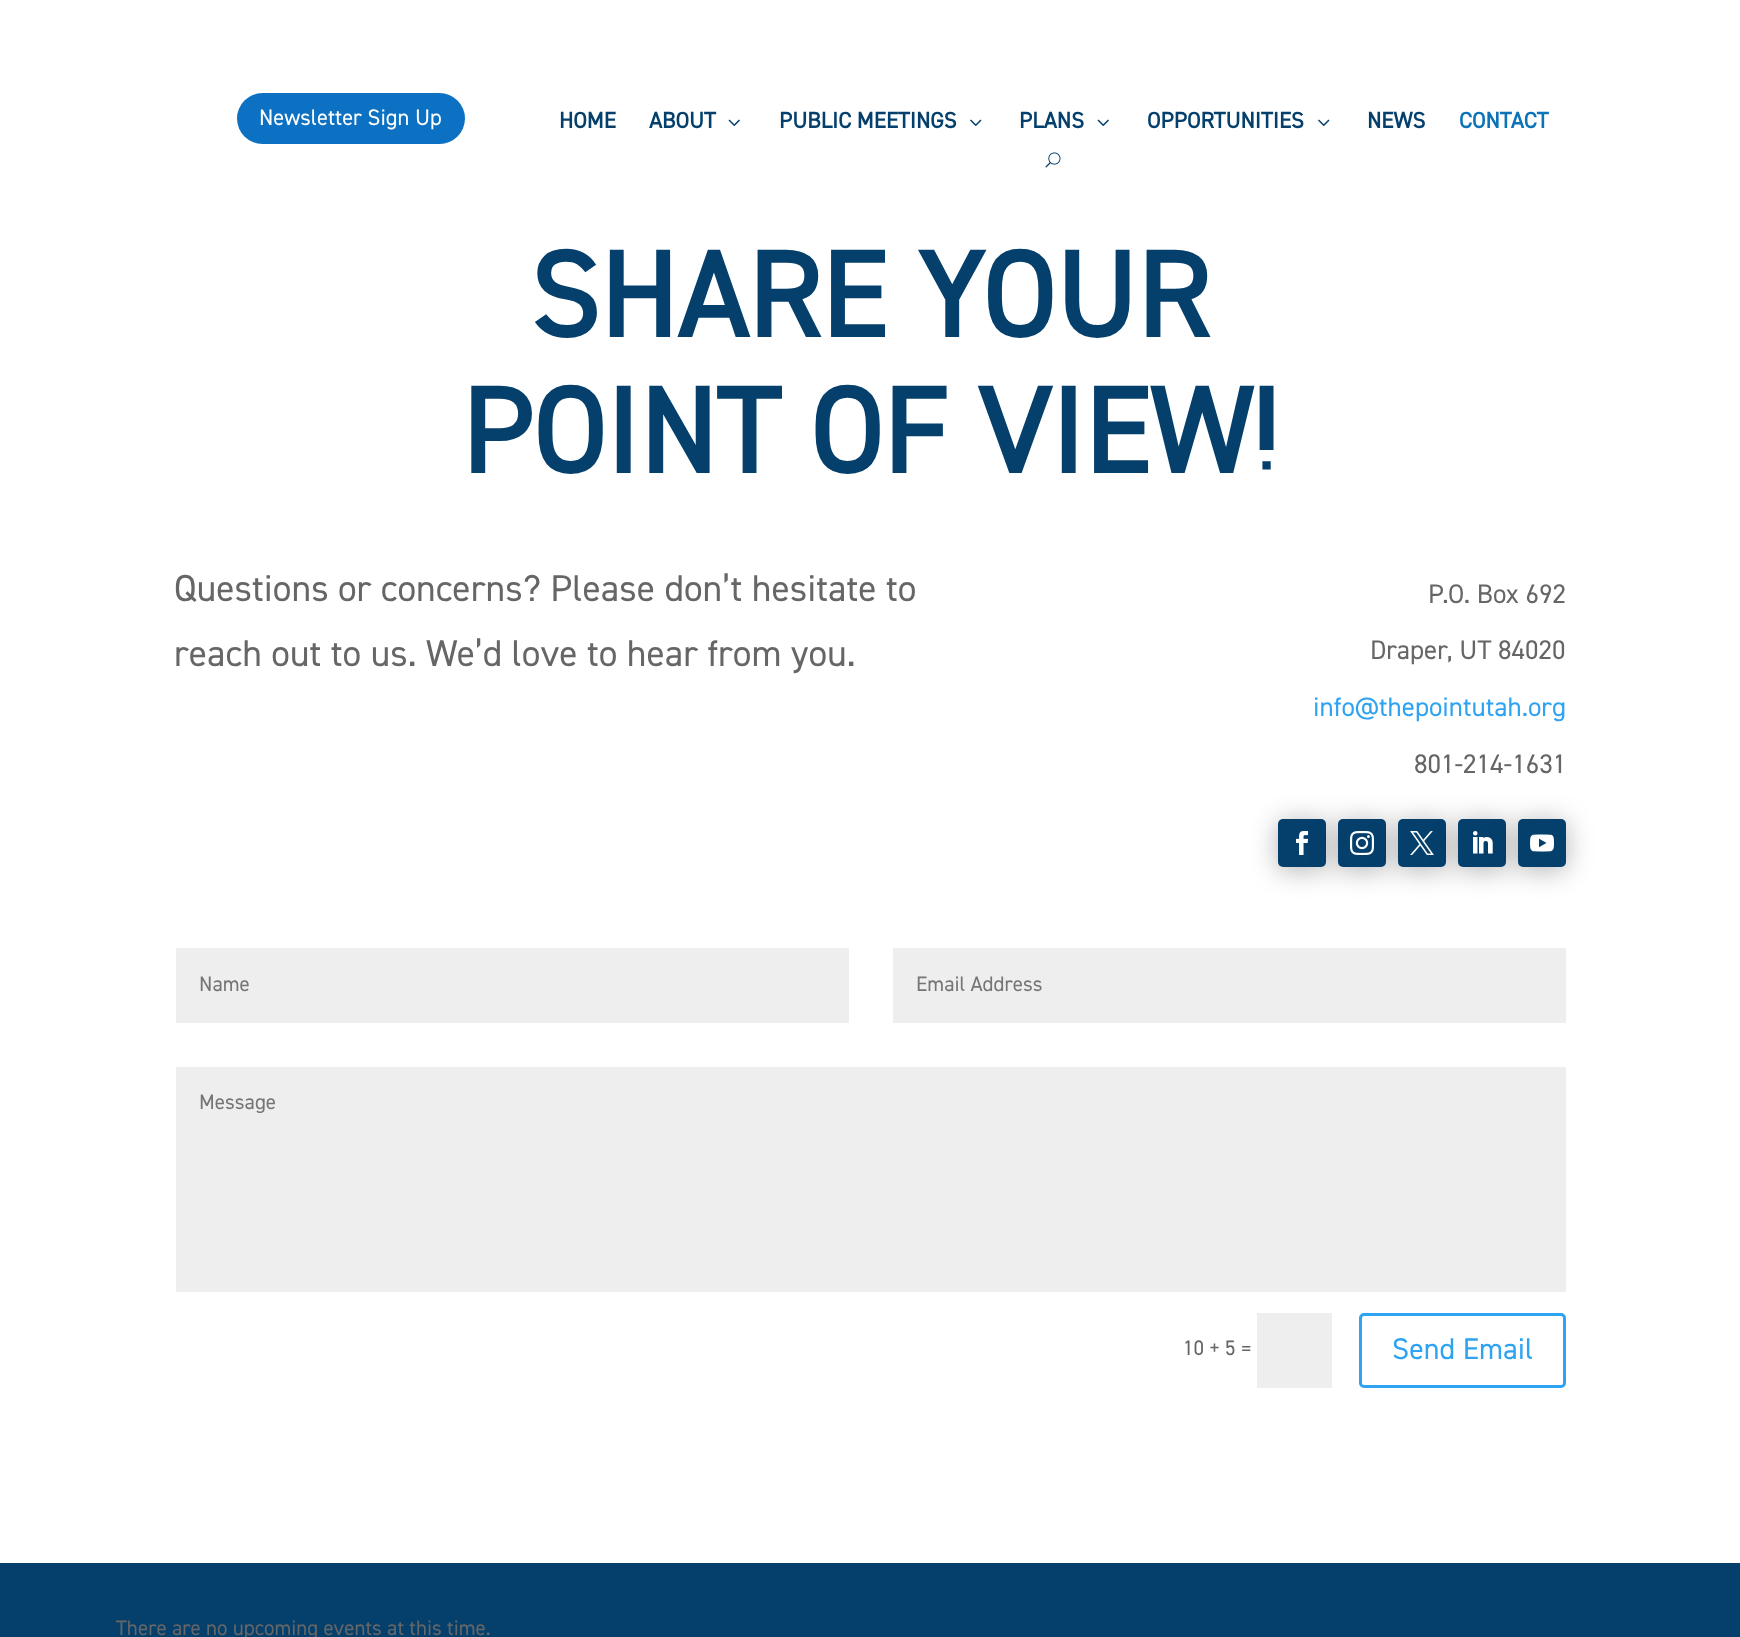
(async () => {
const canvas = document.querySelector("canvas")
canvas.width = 1740
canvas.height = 1637
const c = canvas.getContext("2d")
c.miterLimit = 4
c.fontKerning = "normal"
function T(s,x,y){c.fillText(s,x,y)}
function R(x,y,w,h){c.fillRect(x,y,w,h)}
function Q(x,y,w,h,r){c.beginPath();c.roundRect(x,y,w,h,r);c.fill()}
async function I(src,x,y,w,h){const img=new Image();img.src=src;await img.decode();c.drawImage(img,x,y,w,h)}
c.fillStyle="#fff"
R(0,0,1740,1637)
c.fillStyle="#0c71c3"
Q(237,93,228,51,25.5)
c.font="22.5px 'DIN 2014'"
c.fillStyle="#fff"
T("Newsletter Sign Up",259,125)
c.font="bold 22.5px 'DIN 2014'"
c.fillStyle="#05406d"
T("HOME",559,128)
T("ABOUT",649,128)
await I("1.png",728,119,12,7)
T("PUBLIC MEETINGS",779,128)
await I("2.png",970,119,12,7)
T("PLANS",1019,128)
await I("1.png",1097,119,12,7)
T("OPPORTUNITIES",1147,128)
await I("2.png",1318,119,12,7)
T("NEWS",1367,128)
c.fillStyle="#0b73b8"
T("CONTACT",1459,128)
await I("3.png",1045,152,16,16)
c.font="bold 121.5px 'DIN 2014'"
c.fillStyle="#05406d"
T("SHARE YOUR",530,337)
T("POINT OF VIEW!",461,473)
c.font="37.5px 'DIN 2014'"
c.fillStyle="#666"
T("Questions or concerns? Please don’t hesitate to",174,601)
T("reach out to us. We’d love to hear from you.",174,666)
c.font="27px 'DIN 2014'"
T("P.O. Box 692",1428,603)
T("Draper, UT 84020",1370,659)
c.fillStyle="#2ea3f2"
T("info@thepointutah.org",1313,716)
c.fillStyle="#666"
T("801-214-1631",1414,773)
c.fillStyle="#0000004d"
c.filter="blur(13.5px)"
c.beginPath()
c.roundRect(1278,822,48,48,5)
c.fill()
c.filter="none"
c.fillStyle="#05406d"
Q(1278,819,48,48,5)
c.fillStyle="#0000004d"
c.filter="blur(13.5px)"
c.beginPath()
c.roundRect(1338,822,48,48,5)
c.fill()
c.filter="none"
await I("4.png",1296,831,13,24)
c.fillStyle="#05406d"
Q(1338,819,48,48,5)
c.fillStyle="#0000004d"
c.filter="blur(13.5px)"
c.beginPath()
c.roundRect(1398,822,48,48,5)
c.fill()
c.filter="none"
await I("5.png",1350,831,24,24)
c.fillStyle="#05406d"
Q(1398,819,48,48,5)
c.fillStyle="#0000004d"
c.filter="blur(13.5px)"
c.beginPath()
c.roundRect(1458,822,48,48,5)
c.fill()
c.filter="none"
await I("6.png",1410,831,24,24)
c.fillStyle="#05406d"
Q(1458,819,48,48,5)
c.fillStyle="#0000004d"
c.filter="blur(13.5px)"
c.beginPath()
c.roundRect(1518,822,48,48,5)
c.fill()
c.filter="none"
await I("7.png",1473,831,20,23)
c.fillStyle="#05406d"
Q(1518,819,48,48,5)
await I("8.png",1530,834,24,18)
c.fillStyle="#eee"
R(176,948,673,75)
c.font="21px 'DIN 2014'"
c.fillStyle="#757575"
T("Name",199,991)
c.fillStyle="#eee"
R(893,948,673,75)
c.fillStyle="#757575"
T("Email Address",916,991)
c.fillStyle="#eee"
R(176,1067,1390,225)
c.fillStyle="#757575"
T("Message",199,1109)
c.fillStyle="#666"
T("10 + 5",1183,1355)
T("=",1241,1356)
c.fillStyle="#eee"
R(1257,1313,75,75)
c.beginPath()
c.roundRect(1360.5,1314.5,204,72,3.5)
c.strokeStyle="#2ea3f2"
c.lineWidth=3
c.stroke()
c.font="30px 'DIN 2014'"
c.fillStyle="#2ea3f2"
T("Send Email",1392,1359)
c.fillStyle="#05406d"
R(0,1563,1740,74)
c.font="21px 'DIN 2014'"
c.fillStyle="#666"
T("There are no upcoming events at this time.",116,1635)
})()
